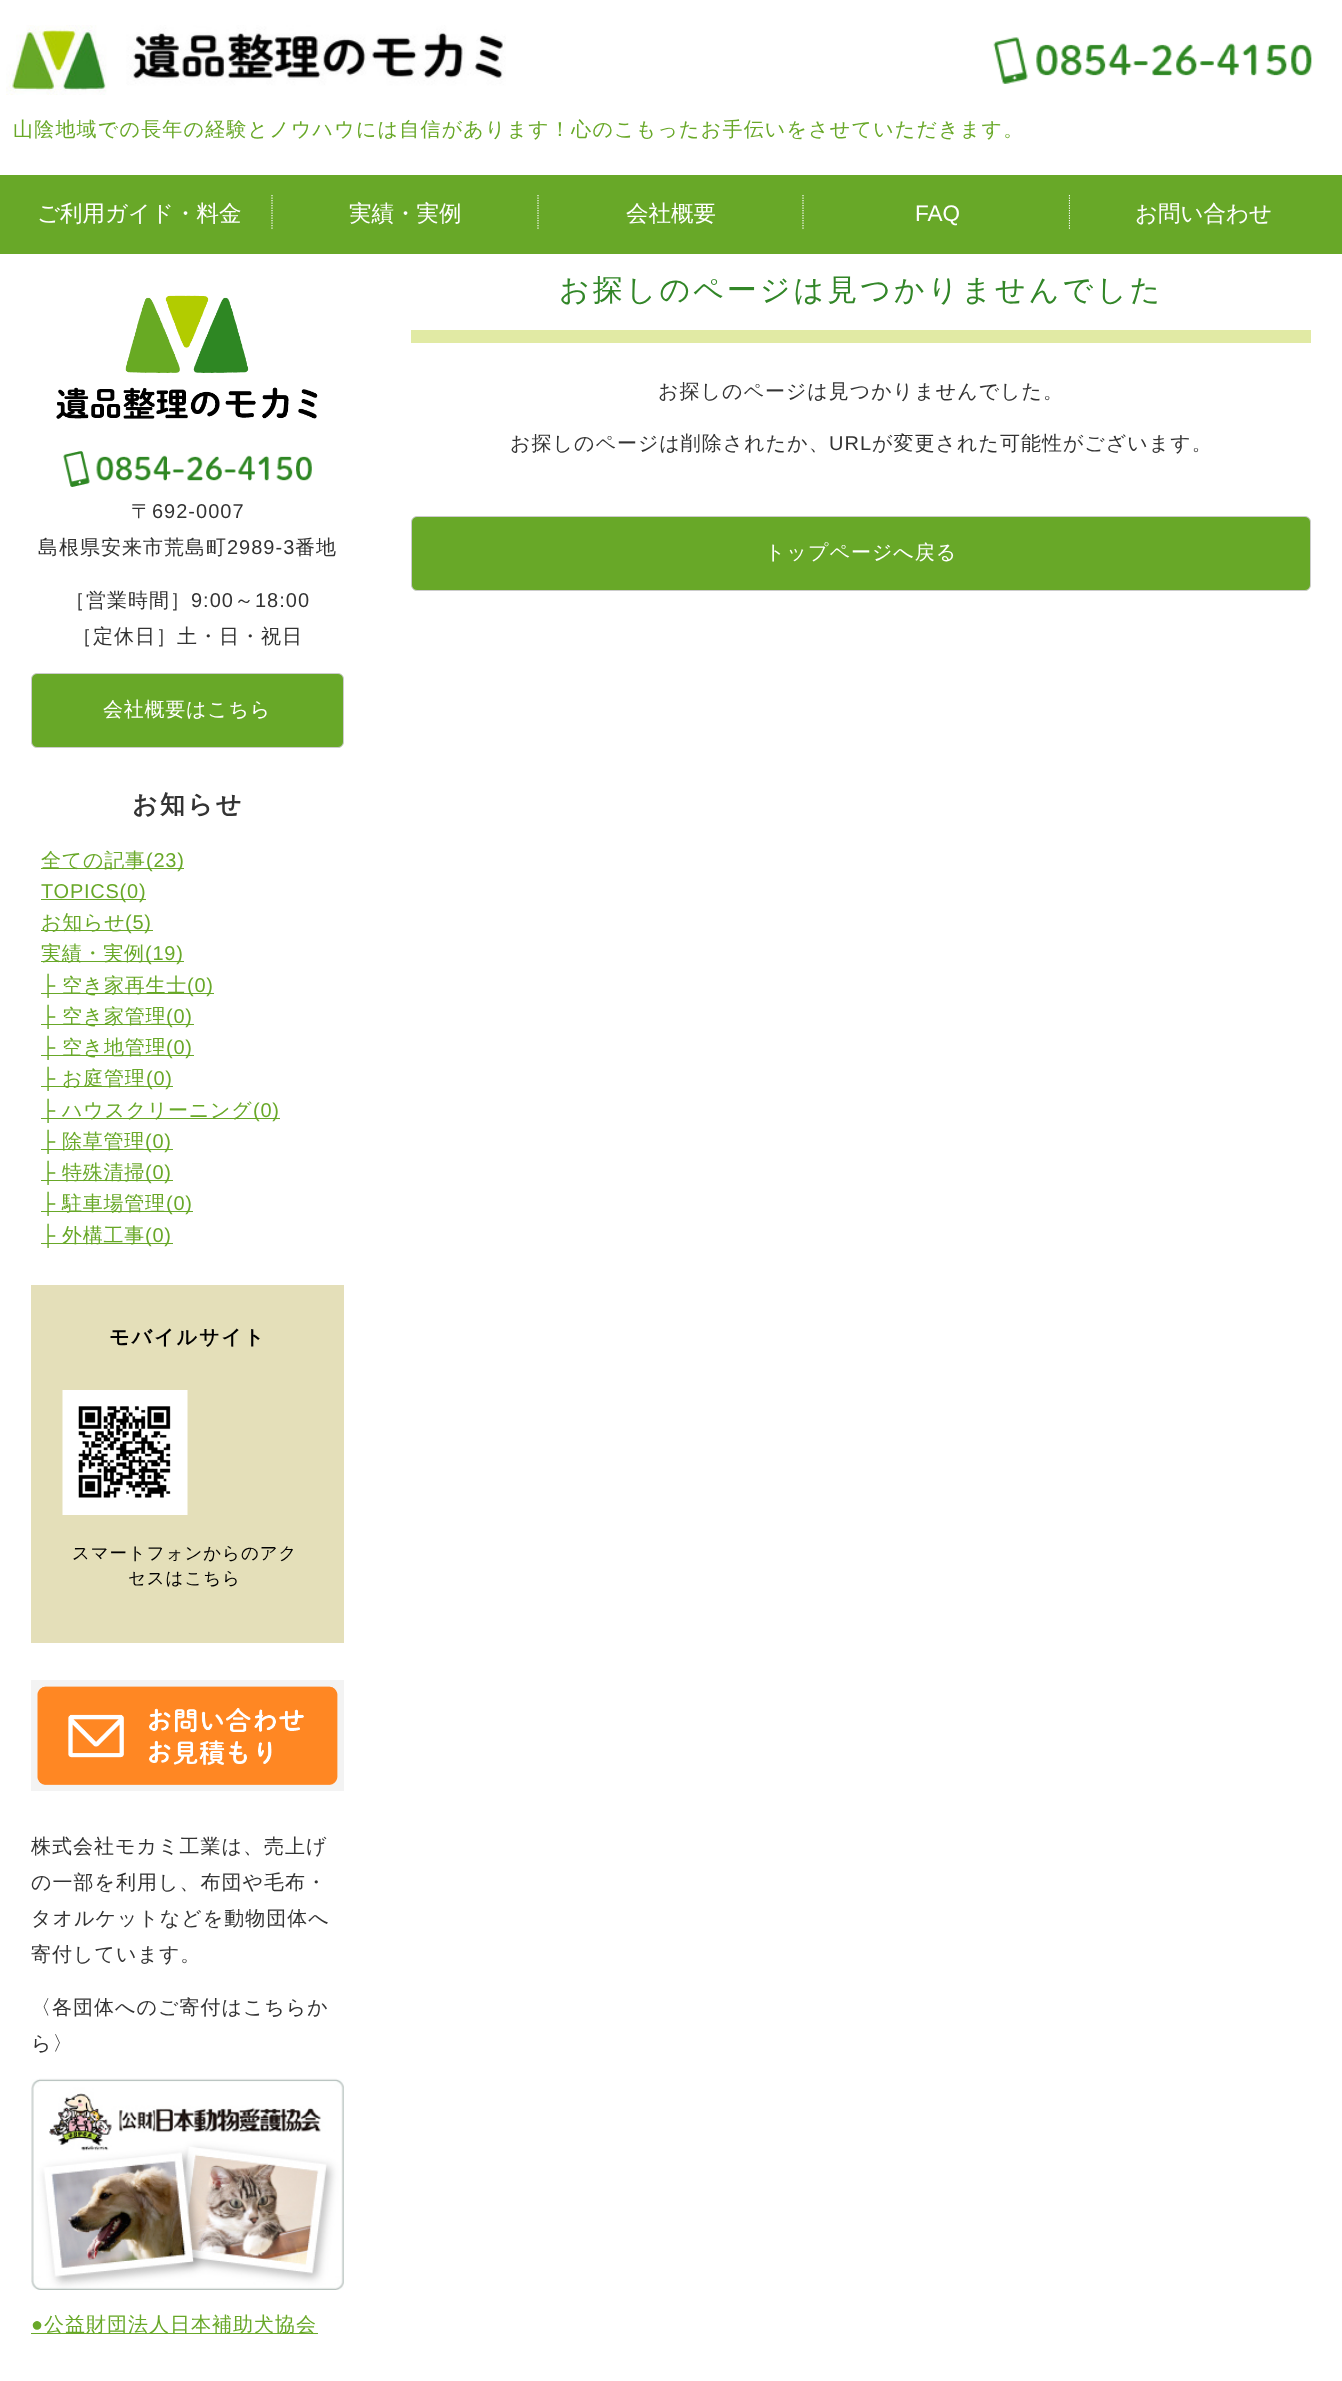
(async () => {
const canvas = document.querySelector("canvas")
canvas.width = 1342
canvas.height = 2381
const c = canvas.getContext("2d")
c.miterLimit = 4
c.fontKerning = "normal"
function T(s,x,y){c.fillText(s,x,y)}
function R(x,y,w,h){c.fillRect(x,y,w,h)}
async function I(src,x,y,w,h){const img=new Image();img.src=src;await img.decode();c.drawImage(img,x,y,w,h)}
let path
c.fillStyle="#fff"
R(0,0,1342,2381)
await I("1.png",993,37,319,47)
await I("2.png",6,25,500,70)
c.letterSpacing="1.2px"
c.font="500 20px WenQuanYi Zen Hei"
c.fillStyle="#68a828"
T("山陰地域での長年の経験とノウハウには自信があります！心のこもったお手伝いをさせていただきます。",13,136)
R(0,175,1342,79)
c.letterSpacing="0px"
c.font="500 22.5px WenQuanYi Zen Hei"
c.fillStyle="#fff"
T("ご利用ガイド・料金",37,221)
path = new Path2D("M272 195v35")
c.strokeStyle="#fff"
c.lineWidth=1.2
c.setLineDash([1.25,1.25])
c.stroke(path)
T("実績・実例",349,221)
path = new Path2D("M538 195v35")
c.stroke(path)
T("会社概要",626,221)
path = new Path2D("M803 195v35")
c.stroke(path)
c.font="22.5px Liberation Sans"
T("FAQ",915,221)
c.save()
c.beginPath()
c.rect(804,175,266,78)
c.clip()
path = new Path2D("M1069.5 195v35")
c.stroke(path)
c.restore()
c.font="500 22.5px WenQuanYi Zen Hei"
T("お問い合わせ",1135,221)
c.letterSpacing="3px"
c.font="500 30px WenQuanYi Zen Hei"
c.fillStyle="#328628"
T("お探しのページは見つかりませんでした",559,300)
c.fillStyle="#e1eaa4"
R(411,330,900,13)
c.letterSpacing="1px"
c.font="500 20px WenQuanYi Zen Hei"
c.fillStyle="#333"
T("お探しのページは見つかりませんでした。",658,398)
T("お探しのページは削除されたか、",510,450)
c.font="20px Liberation Sans"
T("URL",829,450)
c.font="500 20px WenQuanYi Zen Hei"
T("が変更された可能性がございます。",872,450)
c.fillStyle="#68a828"
c.beginPath()
c.roundRect(411.5,516.5,899,74,5.5)
c.fill()
c.strokeStyle="#ccc"
c.lineWidth=1
c.setLineDash([])
c.stroke()
c.fillStyle="#fff"
T("トップページへ戻る",765,559)
await I("3.png",56,295,262,124)
await I("4.png",63,451,249,36)
c.fillStyle="#333"
T("〒",131,518)
c.font="20px Liberation Sans"
T("692-0007",152,518)
c.font="500 20px WenQuanYi Zen Hei"
T("島根県安来市荒島町",38,554)
c.font="20px Liberation Sans"
T("2989-3",227,554)
c.font="500 20px WenQuanYi Zen Hei"
T("番地",295,554)
T("［営業時間］",65,607)
c.font="20px Liberation Sans"
T("9:00",191,607)
c.font="500 20px WenQuanYi Zen Hei"
T("～",234,607)
c.font="20px Liberation Sans"
T("18:00",255,607)
c.font="500 20px WenQuanYi Zen Hei"
T("［定休日］土・日・祝日",72,643)
c.fillStyle="#68a828"
c.beginPath()
c.roundRect(31.5,673.5,312,74,5.5)
c.fill()
c.stroke()
c.letterSpacing="0.75px"
c.fillStyle="#fff"
T("会社概要はこちら",103,716)
c.letterSpacing="2.5px"
c.font="bold 25px WenQuanYi Zen Hei"
c.fillStyle="#333"
T("お知らせ",132,813)
c.fillStyle="#68a828"
R(41,868,143,1)
c.letterSpacing="0.75px"
c.font="500 20px WenQuanYi Zen Hei"
T("全ての記事",41,867)
c.font="20px Liberation Sans"
T("(23)",146,867)
R(41,899,105,1)
T("TOPICS(0)",41,898)
R(41,930,112,1)
c.font="500 20px WenQuanYi Zen Hei"
T("お知らせ",41,929)
c.font="20px Liberation Sans"
T("(5)",125,929)
R(41,961,143,1)
c.font="500 20px WenQuanYi Zen Hei"
T("実績・実例",41,960)
c.font="20px Liberation Sans"
T("(19)",145,960)
R(41,993,173,1)
T("├",41,992)
c.font="500 20px WenQuanYi Zen Hei"
T("空き家再生士",62,992)
c.font="20px Liberation Sans"
T("(0)",187,992)
R(41,1024,153,1)
T("├",41,1023)
c.font="500 20px WenQuanYi Zen Hei"
T("空き家管理",62,1023)
c.font="20px Liberation Sans"
T("(0)",166,1023)
R(41,1055,153,1)
T("├",41,1054)
c.font="500 20px WenQuanYi Zen Hei"
T("空き地管理",62,1054)
c.font="20px Liberation Sans"
T("(0)",166,1054)
R(41,1086,132,1)
T("├",41,1085)
c.font="500 20px WenQuanYi Zen Hei"
T("お庭管理",62,1085)
c.font="20px Liberation Sans"
T("(0)",146,1085)
R(41,1118,239,1)
T("├",41,1117)
c.font="500 20px WenQuanYi Zen Hei"
T("ハウスクリーニング",62,1117)
c.font="20px Liberation Sans"
T("(0)",253,1117)
R(41,1149,132,1)
T("├",41,1148)
c.font="500 20px WenQuanYi Zen Hei"
T("除草管理",62,1148)
c.font="20px Liberation Sans"
T("(0)",145,1148)
R(41,1180,132,1)
T("├",41,1179)
c.font="500 20px WenQuanYi Zen Hei"
T("特殊清掃",62,1179)
c.font="20px Liberation Sans"
T("(0)",145,1179)
R(41,1211,152,1)
T("├",41,1210)
c.font="500 20px WenQuanYi Zen Hei"
T("駐車場管理",62,1210)
c.font="20px Liberation Sans"
T("(0)",166,1210)
R(41,1243,132,1)
T("├",41,1242)
c.font="500 20px WenQuanYi Zen Hei"
T("外構工事",62,1242)
c.font="20px Liberation Sans"
T("(0)",145,1242)
c.fillStyle="#e4dfb9"
R(31,1285,313,358)
c.letterSpacing="2px"
c.font="bold 20px WenQuanYi Zen Hei"
c.fillStyle="#000"
T("モバイルサイト",109,1344)
await I("5.png",62,1390,126,125)
c.letterSpacing="0.9px"
c.font="500 17.5px WenQuanYi Zen Hei"
T("スマートフォンからのアク",72,1559)
T("セスはこちら",128,1584)
c.fillStyle="#f3f3f3"
R(31,1680,313,111)
await I("6.png",37,1686,301,99)
c.letterSpacing="1px"
c.font="500 20px WenQuanYi Zen Hei"
c.fillStyle="#333"
T("株式会社モカミ工業は、売上げ",31,1853)
T("の一部を利用し、布団や毛布・",31,1889)
T("タオルケットなどを動物団体へ",31,1925)
T("寄付しています。",31,1961)
T("〈各団体へのご寄付はこちらか",31,2014)
T("ら〉",31,2050)
await I("7.png",31,2078,313,212)
c.font="20px Liberation Sans"
c.fillStyle="#68a828"
T("●",31,2331)
R(31,2333,287,1)
c.font="500 20px WenQuanYi Zen Hei"
T("公益財団法人日本補助犬協会",44,2331)
})()
